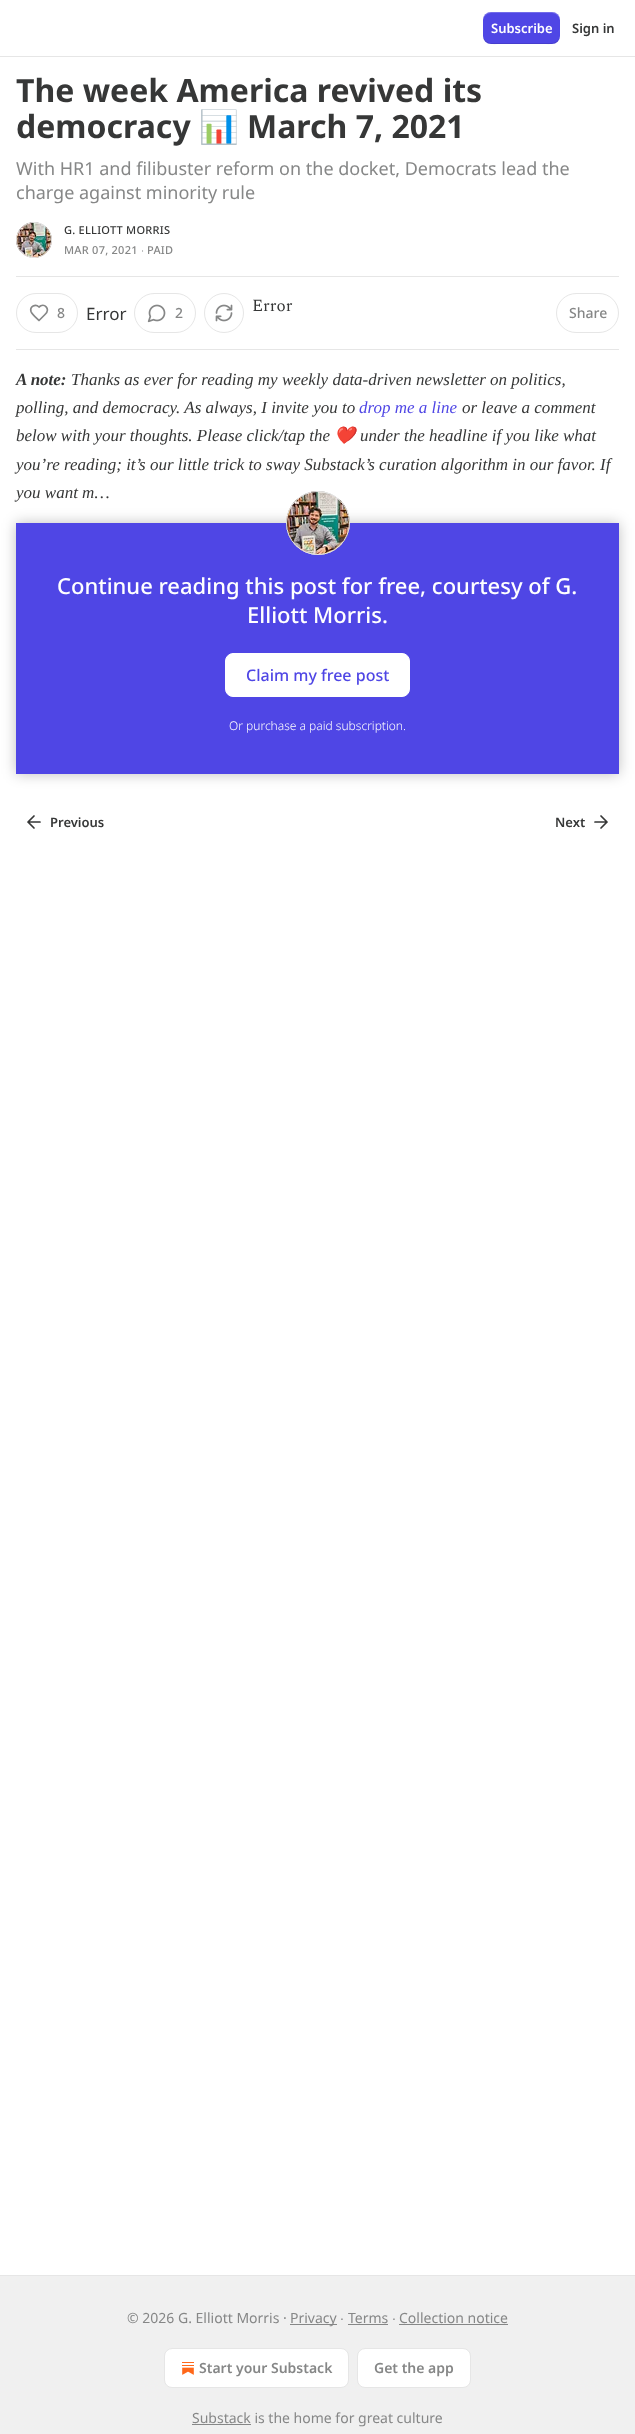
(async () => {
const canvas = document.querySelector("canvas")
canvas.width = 635
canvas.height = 2434
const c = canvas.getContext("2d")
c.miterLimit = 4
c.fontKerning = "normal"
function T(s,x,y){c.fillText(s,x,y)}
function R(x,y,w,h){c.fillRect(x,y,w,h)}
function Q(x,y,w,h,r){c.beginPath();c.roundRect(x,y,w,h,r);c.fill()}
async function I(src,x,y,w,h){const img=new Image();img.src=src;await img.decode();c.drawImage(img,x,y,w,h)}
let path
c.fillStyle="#fff"
R(0,0,635,2434)
c.fillStyle="#e6e6e6"
R(0,56,635,1)
c.fillStyle="#4f46e5"
Q(483,12,77,32,8)
c.fillStyle="#0000001a"
path = new Path2D("M483 35c0 11 10 9 18 9h41c8 0 18 2 18-9c0 4-4 8-8 8h-61c-4 0-8-4-8-8z")
c.fill(path)
c.fillStyle="#ffffff33"
path = new Path2D("M491 13h61c4 0 8 4 8 8c0-11-10-9-18-9h-41c-8 0-18-2-18 9c0-4 4-8 8-8z")
c.fill(path)
c.font="600 13px Noto Sans"
c.fillStyle="#fff"
T("Subscribe",491,33)
c.fillStyle="#363737"
T("Sign in",572,33)
c.font="bold 32px Noto Sans"
T("The week America revived its",16,102)
T("democracy",16,138)
c.font="bold 32px Noto Color Emoji"
T("📊",199,138)
c.font="bold 32px Noto Sans"
T("March 7, 2021",247,138)
c.font="18px Noto Sans"
c.fillStyle="#868787"
T("With HR1 and filibuster reform on the docket, Democrats lead the",16,175)
T("charge against minority rule",16,199)
c.beginPath()
c.arc(34,240,17.5,0,7)
c.strokeStyle="#e6e6e6"
c.stroke()
await I("1.png",16,222,36,36)
c.beginPath()
c.arc(34,240,17.5,0,7)
c.stroke()
c.letterSpacing="0.25px"
c.font="500 11px Noto Sans"
c.fillStyle="#363737"
T("G. ELLIOTT MORRIS",64,234)
c.fillStyle="#868787"
T("MAR 07, 2021",64,254)
c.font="11px Liberation Sans"
T("∙",141,254)
c.font="500 11px Noto Sans"
T("PAID",147,254)
c.fillStyle="#e6e6e6"
R(16,276,603,1)
R(16,349,603,1)
c.beginPath()
c.arc(224,313,19.5,0,7)
c.stroke()
await I("2.png",215,304,18,18)
c.letterSpacing="0px"
c.font="17px Spectral"
c.fillStyle="#363737"
T("Error",252,311)
c.beginPath()
c.roundRect(16.5,293.5,61,39,19.5)
c.stroke()
path = new Path2D("M45 314.5c6-6-1-12-6-7.5c-3.5-3.5-9.5-.5-8 4.5c1 3 6 7 8 9z")
c.strokeStyle="#868787"
c.lineWidth=1.7
c.lineCap="round"
c.lineJoin="round"
c.stroke(path)
c.font="500 14px Noto Sans"
c.fillStyle="#868787"
T("8",57,318)
c.font="17px Noto Sans"
c.fillStyle="#363737"
T("Error",86,320)
c.beginPath()
c.roundRect(134.5,293.5,61,39,19.5)
c.strokeStyle="#e6e6e6"
c.lineWidth=1
c.lineJoin="miter"
c.stroke()
await I("3.png",147,304,19,19)
c.font="500 14px Noto Sans"
c.fillStyle="#868787"
T("2",175,318)
c.beginPath()
c.roundRect(556.5,293.5,62,39,19.5)
c.stroke()
T("Share",569,318)
c.font="italic bold 17px Liberation Serif"
c.fillStyle="#363737"
T("A note:",16,385)
c.font="italic 17px Liberation Serif"
T("Thanks as ever for reading my weekly data-driven newsletter on politics,",71,385)
T("polling, and democracy. As always, I invite you to",16,413)
c.fillStyle="#4f46e5"
T("drop me a line",359,413)
c.fillStyle="#363737"
T("or leave a comment",462,413)
T("below with your thoughts. Please click/tap the",16,441)
c.font="italic 17px Noto Color Emoji"
T("❤️",334,441)
c.font="italic 17px Liberation Serif"
T("under the headline if you like what",360,441)
T("you’re reading; it’s our little trick to sway Substack’s curation algorithm in our favor. If",16,470)
T("you want m…",16,498)
c.fillStyle="#4f46e5"
R(16,523,603,251)
c.fillStyle="#fff"
c.beginPath()
c.roundRect(225.5,653.5,184,43,7.5)
c.fill()
c.strokeStyle="#fff"
c.stroke()
c.save()
path = new Path2D("M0 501h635v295h-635zm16 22h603v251h-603z")
c.clip(path,"evenodd")
c.fillStyle="#00000040"
c.filter="blur(7px)"
c.beginPath()
c.rect(16,523,603,251)
c.fill()
c.filter="none"
c.restore()
c.beginPath()
c.arc(318,523,31.5,0,7)
c.strokeStyle="#e6e6e6"
c.stroke()
await I("4.png",286,491,64,64)
c.beginPath()
c.arc(318,523,31.5,0,7)
c.stroke()
c.font="500 22px Noto Sans"
T("Continue reading this post for free, courtesy of G.",57,594)
T("Elliott Morris.",247,623)
c.font="500 16px Noto Sans"
c.fillStyle="#4f46e5"
T("Claim my free post",246,681)
c.font="300 12px Noto Sans"
c.fillStyle="#fff"
T("Or purchase a paid subscription.",229,730)
path = new Path2D("M34 828l-6-6l6-6m6 6h-12")
c.strokeStyle="#363737"
c.lineWidth=1.7
c.lineJoin="round"
c.stroke(path)
c.font="600 13px Noto Sans"
c.fillStyle="#363737"
T("Previous",50,827)
T("Next",555,827)
path = new Path2D("M595 822h12m-6-6l6 6l-6 6")
c.stroke(path)
c.fillStyle="#f0f0f0"
R(0,2276,635,158)
c.fillStyle="#e6e6e6"
R(0,2275,635,1)
c.font="14px Noto Sans"
c.fillStyle="#868787"
T("© 2026 G. Elliott Morris ·",127,2323)
R(290,2324,47,1)
T("Privacy",290,2323)
c.font="14px Liberation Sans"
T("∙",340,2323)
c.font="14px Noto Sans"
T("Terms",348,2323)
R(348,2324,40,1)
c.font="14px Liberation Sans"
T("∙",392,2323)
c.font="14px Noto Sans"
T("Collection notice",399,2323)
R(399,2324,109,1)
c.fillStyle="#fff"
c.beginPath()
c.roundRect(164.5,2348.5,184,39,7.5)
c.fill()
c.strokeStyle="#e6e6e6"
c.lineWidth=1
c.lineJoin="miter"
c.stroke()
await I("5.png",182,2362,12,13)
c.font="600 14px Noto Sans"
c.fillStyle="#868787"
T("Start your Substack",199,2373)
c.fillStyle="#fff"
c.beginPath()
c.roundRect(357.5,2348.5,113,39,7.5)
c.fill()
c.stroke()
c.fillStyle="#868787"
T("Get the app",374,2373)
R(192,2424,59,1)
c.font="14px Noto Sans"
T("Substack is the home for great culture",192,2423)
})()
